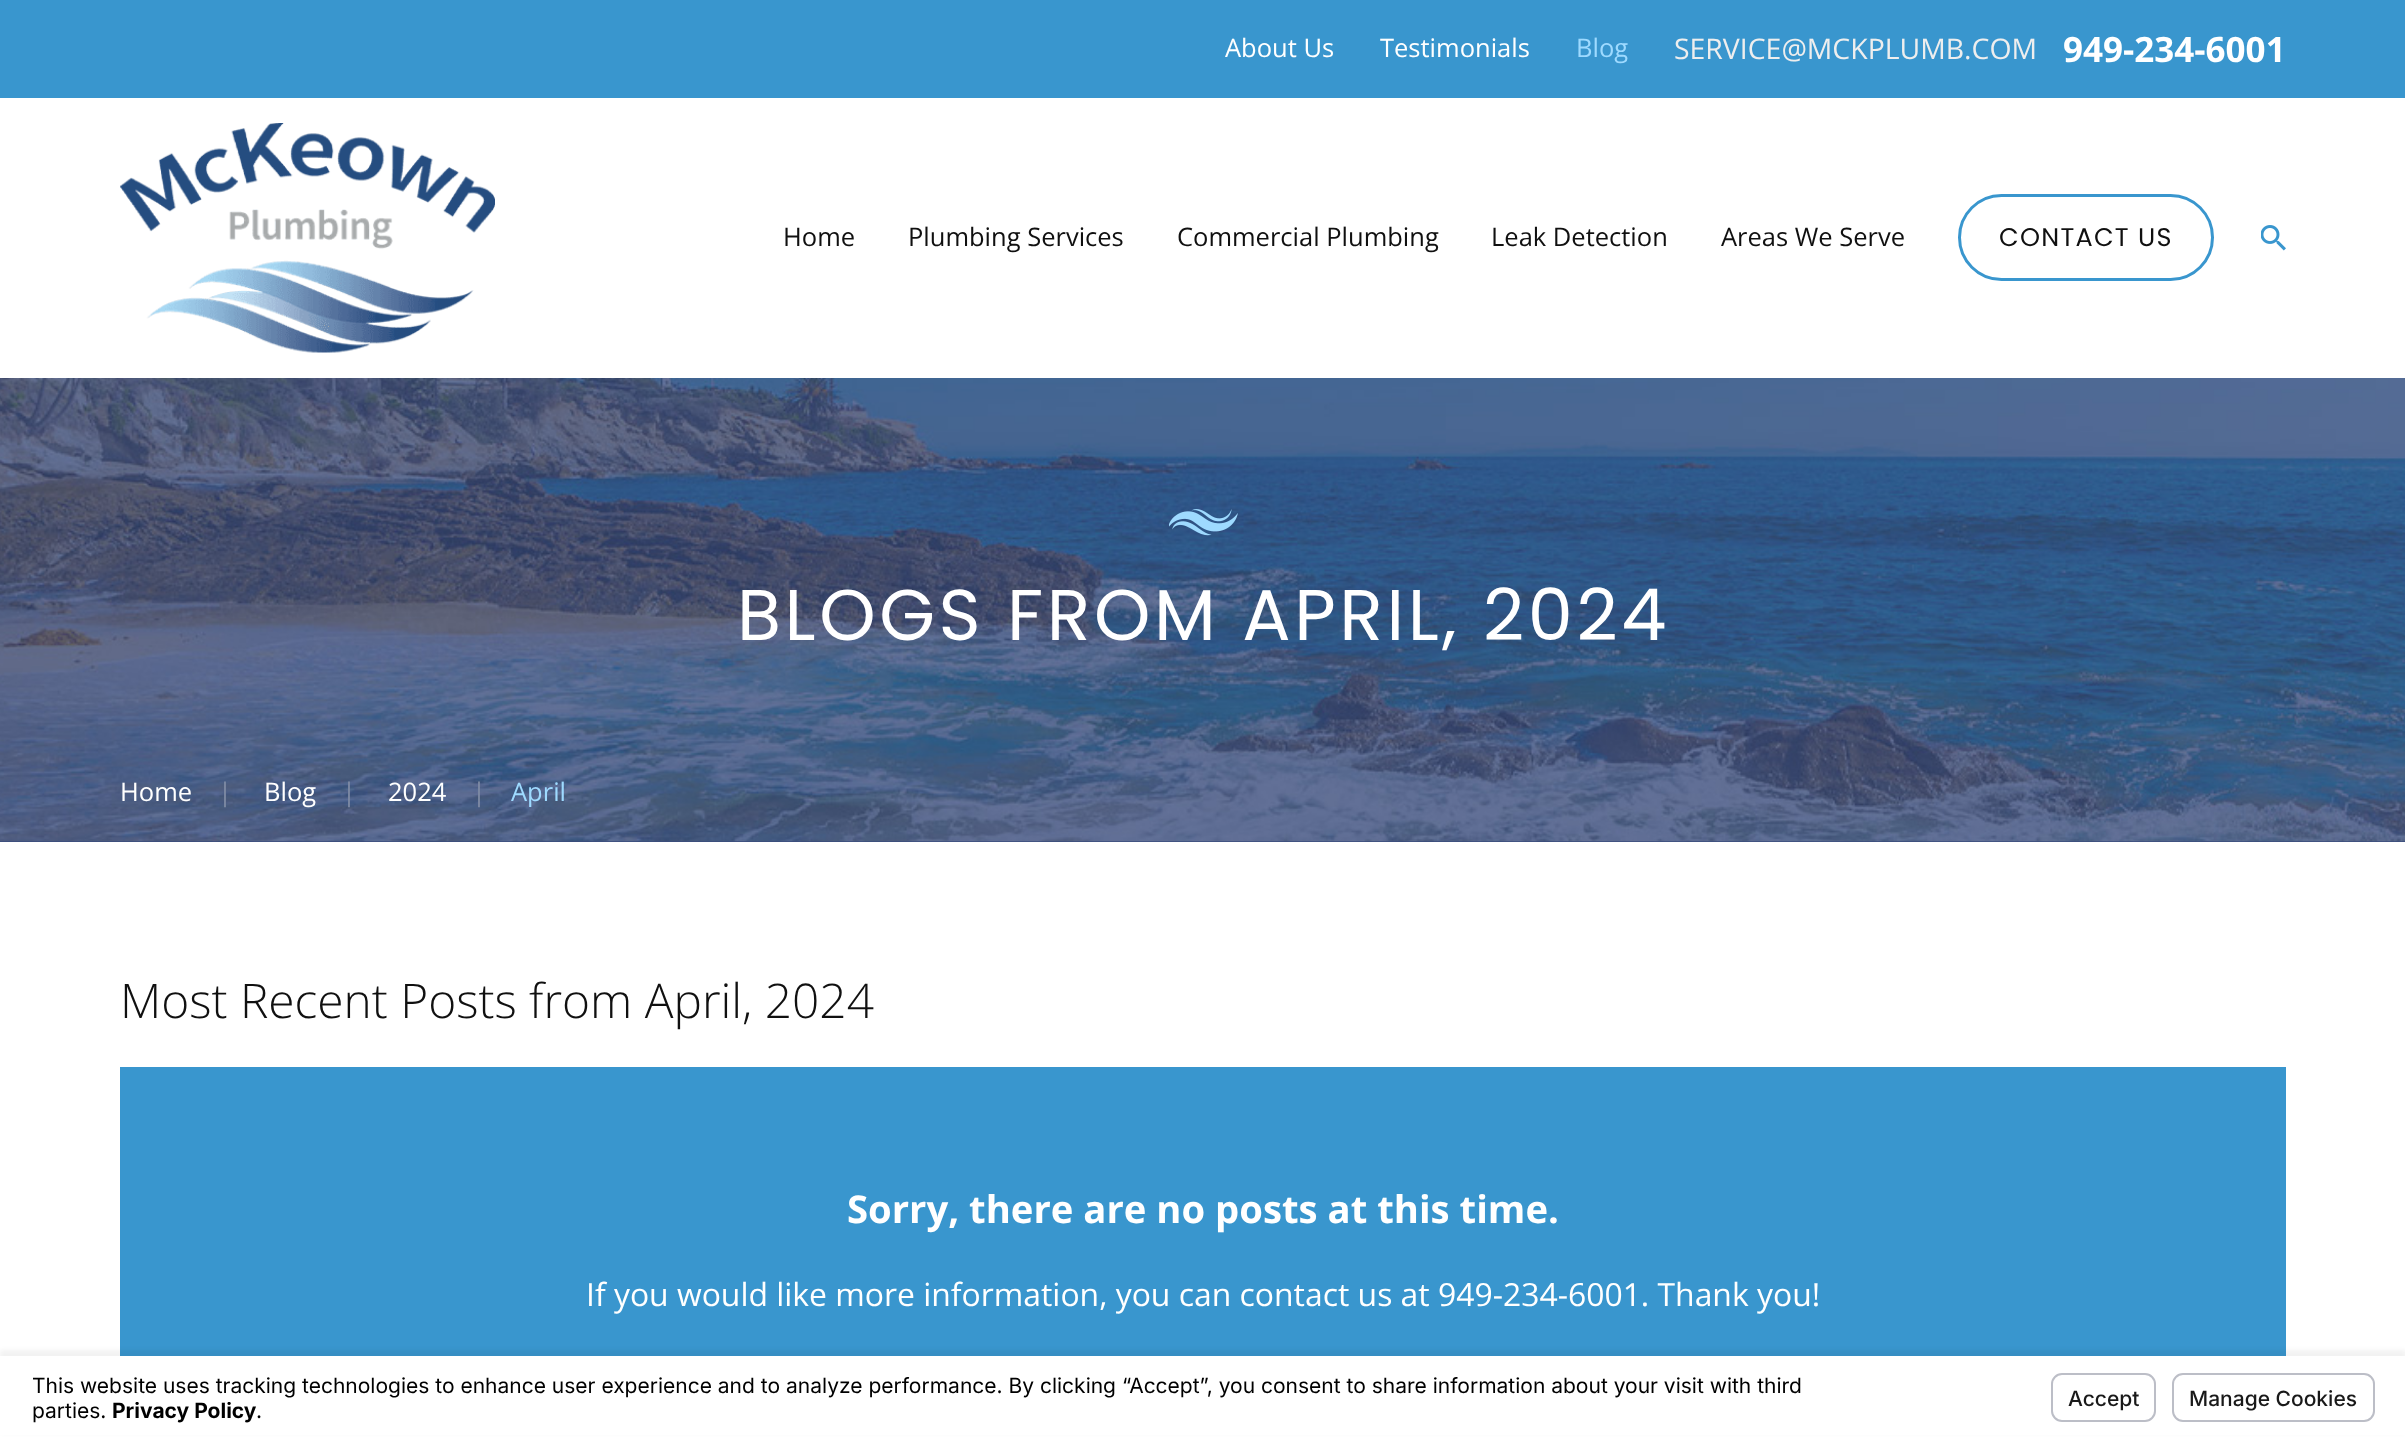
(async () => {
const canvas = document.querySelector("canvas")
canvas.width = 2405
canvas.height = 1438
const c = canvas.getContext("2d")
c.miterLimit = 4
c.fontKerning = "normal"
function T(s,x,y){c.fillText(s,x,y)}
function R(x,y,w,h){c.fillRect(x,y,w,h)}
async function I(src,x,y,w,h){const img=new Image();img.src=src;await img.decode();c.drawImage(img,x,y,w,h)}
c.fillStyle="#fff"
R(0,0,2405,1438)
c.fillStyle="#3996ce"
R(0,0,2405,98)
c.font="25.5px Open Sans"
c.fillStyle="#fff"
T("About Us",1225,57)
T("Testimonials",1380,57)
c.fillStyle="#9edaff"
T("Blog",1576,57)
c.font="28.4px Open Sans"
c.fillStyle="#eee"
T("SERVICE@MCKPLUMB.COM",1674,59)
c.font="bold 35px Open Sans"
c.fillStyle="#fff"
T("949-234-6001",2063,62)
await I("1.png",120,123,375,230)
c.font="25.5px Open Sans"
c.fillStyle="#101010"
T("Home",783,246)
T("Plumbing Services",908,246)
T("Commercial Plumbing",1177,246)
T("Leak Detection",1491,246)
T("Areas We Serve",1721,246)
c.beginPath()
c.roundRect(1959.5,195.5,253,84,42)
c.strokeStyle="#3996ce"
c.lineWidth=3
c.stroke()
c.letterSpacing="1.25px"
c.font="25.5px Poppins"
T("CONTACT US",1999,246)
await I("2.png",2261,225,25,26)
c.fillStyle="#3a4c7c"
R(0,841,2405,1)
await I("3.png",0,378,2405,464)
await I("4.png",1169,509,69,27)
c.letterSpacing="3.6px"
c.font="71.75px Poppins"
c.fillStyle="#fff"
T("BLOGS FROM APRIL, 2024",737,640)
c.letterSpacing="0px"
c.font="25.5px Open Sans"
T("Home",120,801)
c.fillStyle="#808ca5"
T("|",218,801)
c.fillStyle="#fff"
T("Blog",264,801)
c.fillStyle="#808ca5"
T("|",342,801)
c.fillStyle="#fff"
T("2024",388,801)
c.fillStyle="#808ca5"
T("|",472,801)
c.fillStyle="#9edaff"
T("April",511,801)
c.font="300 47.8px Open Sans"
c.fillStyle="#101010"
T("Most Recent Posts from April, 2024",120,1018)
c.fillStyle="#3996ce"
R(120,1067,2166,289)
c.font="bold 38.25px Open Sans"
c.fillStyle="#fff"
T("Sorry, there are no posts at this time.",847,1223)
c.font="31.9px Open Sans"
T("If you would like more information, you can contact us at",586,1306)
T("949-234-6001. Thank you!",1438,1306)
c.fillStyle="#0000000d"
c.filter="blur(2px)"
c.beginPath()
c.rect(0,1350,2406,83)
c.fill()
c.filter="none"
c.fillStyle="#fff"
R(0,1356,2405,79)
c.font="21px Inter"
c.fillStyle="#000"
T("This website uses tracking technologies to enhance user experience and to analyze performance. By clicking “Accept”, you consent to share information about your visit with third",32,1393)
T("parties.",32,1418)
c.font="bold 21px Inter"
T("Privacy Policy",112,1418)
c.font="21px Inter"
T(".",256,1418)
c.beginPath()
c.roundRect(2052,1374,103,47,10)
c.strokeStyle="#bcbec7"
c.lineWidth=2
c.stroke()
c.font="500 21px Inter"
c.fillStyle="#191919"
T("Accept",2068,1406)
c.beginPath()
c.roundRect(2173,1374,201,47,10)
c.stroke()
T("Manage Cookies",2189,1406)
})()
